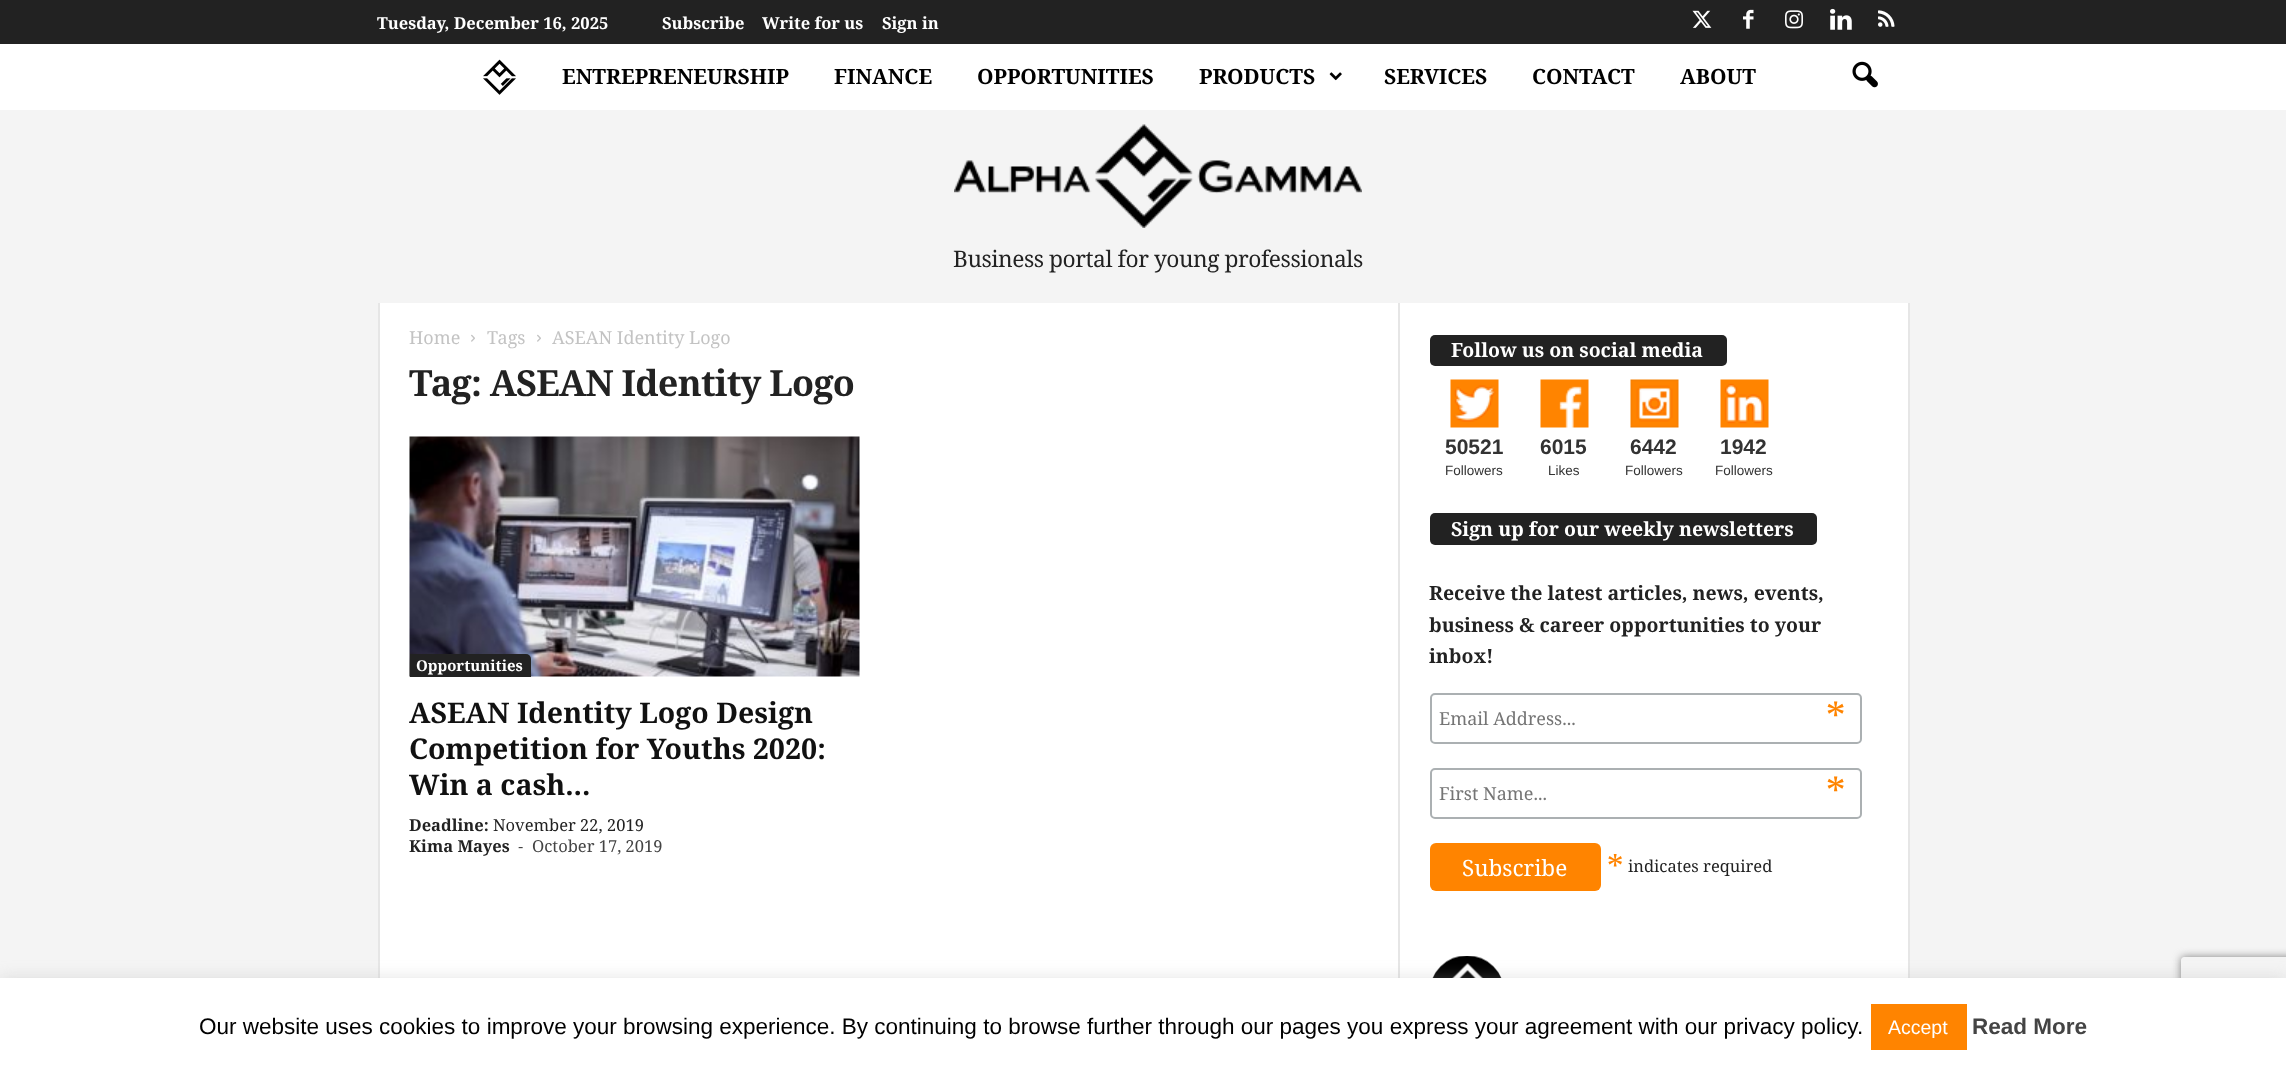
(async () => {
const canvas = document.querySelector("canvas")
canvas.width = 2286
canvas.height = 1067
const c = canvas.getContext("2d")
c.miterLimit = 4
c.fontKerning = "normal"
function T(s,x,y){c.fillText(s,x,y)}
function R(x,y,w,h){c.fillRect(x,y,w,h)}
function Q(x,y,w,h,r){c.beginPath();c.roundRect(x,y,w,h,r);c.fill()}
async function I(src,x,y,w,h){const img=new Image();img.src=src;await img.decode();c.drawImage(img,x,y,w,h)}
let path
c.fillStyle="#f4f4f4"
R(0,0,2286,1067)
c.fillStyle="#222"
R(0,0,2286,44)
c.font="bold 16.5px Noto Serif"
c.fillStyle="#fff"
T("Tuesday, December 16, 2025",377,29)
T("Subscribe",662,29)
T("Write for us",762,29)
T("Sign in",882,29)
await I("1.png",1692,10,20,18)
await I("2.png",1743,9,11,20)
await I("3.png",1785,10,18,19)
await I("4.png",1830,8,22,22)
await I("5.png",1878,10,17,17)
R(0,44,2286,66)
await I("6.png",483,59,33,36)
c.font="bold 21px Noto Serif"
c.fillStyle="#000"
T("ENTREPRENEURSHIP",562,84)
T("FINANCE",834,84)
T("OPPORTUNITIES",977,84)
T("PRODUCTS",1199,84)
await I("7.png",1329,72,13,9)
T("SERVICES",1384,84)
T("CONTACT",1532,84)
T("ABOUT",1680,84)
await I("8.png",1852,61,26,27)
await I("9.png",954,124,408,104)
c.letterSpacing="-0.45px"
c.font="22.75px Noto Serif"
c.fillStyle="#222"
T("Business portal for young professionals",953,267)
c.fillStyle="#fff"
R(380,303,1528,675)
c.fillStyle="#e6e6e6"
R(378,303,2,675)
c.letterSpacing="0px"
c.font="18px Noto Serif"
c.fillStyle="#c3c3c3"
T("Home",409,344)
await I("10.png",471,334,4,8)
T("Tags",487,344)
await I("10.png",537,334,4,8)
T("ASEAN Identity Logo",552,344)
c.letterSpacing="-0.75px"
c.font="bold 36px Noto Serif"
c.fillStyle="#222"
T("Tag: ASEAN Identity Logo",409,396)
await I("11.png",409,436,451,241)
c.beginPath()
c.roundRect(410,654,121,23,[0,5,0,0])
c.fill()
c.letterSpacing="0px"
c.font="bold 15px Noto Serif"
c.fillStyle="#fff"
T("Opportunities",416,671)
c.font="bold 28.5px Noto Serif"
c.fillStyle="#111"
T("ASEAN Identity Logo Design",409,723)
T("Competition for Youths 2020:",409,759)
T("Win a cash...",409,795)
c.font="bold 16.5px Noto Serif"
c.fillStyle="#222"
T("Deadline:",409,831)
c.font="16.5px Noto Serif"
T("November 22, 2019",493,831)
c.font="bold 16.5px Noto Serif"
T("Kima Mayes",409,852)
c.font="16.5px Open Sans"
c.fillStyle="#444"
T("-",518,852)
c.font="16.5px Noto Serif"
T("October 17, 2019",532,852)
c.fillStyle="#e6e6e6"
R(1398,303,2,675)
c.fillStyle="#222"
Q(1430,335,297,31,5)
c.font="bold 19.5px Noto Serif"
c.fillStyle="#fff"
T("Follow us on social media",1451,357)
await I("12.png",1450,379,49,49)
c.font="bold 21px Liberation Sans"
c.fillStyle="#333"
T("50521",1445,454)
c.font="13.5px Liberation Sans"
T("Followers",1445,475)
await I("13.png",1540,379,49,49)
c.font="bold 21px Liberation Sans"
T("6015",1540,454)
c.font="13.5px Liberation Sans"
T("Likes",1548,475)
await I("14.png",1630,379,49,49)
c.font="bold 21px Liberation Sans"
T("6442",1630,454)
c.font="13.5px Liberation Sans"
T("Followers",1625,475)
await I("15.png",1720,379,49,49)
c.font="bold 21px Liberation Sans"
T("1942",1720,454)
c.font="13.5px Liberation Sans"
T("Followers",1715,475)
c.fillStyle="#222"
Q(1430,513,387,32,5)
c.font="bold 19.5px Noto Serif"
c.fillStyle="#fff"
T("Sign up for our weekly newsletters",1451,536)
c.fillStyle="#222"
T("Receive the latest articles, news, events,",1429,600)
T("business & career opportunities to your",1429,632)
T("inbox!",1429,663)
c.beginPath()
c.roundRect(1431,694,430,49,4)
c.strokeStyle="#abb0b2"
c.lineWidth=2
c.stroke()
c.font="39px Noto Serif"
c.fillStyle="#ff8400"
T("*",1826,731)
c.font="18px Noto Serif"
c.fillStyle="#757575"
T("Email Address...",1439,725)
c.beginPath()
c.roundRect(1431,769,430,49,4)
c.stroke()
c.font="39px Noto Serif"
c.fillStyle="#ff8400"
T("*",1826,806)
c.font="18px Noto Serif"
c.fillStyle="#757575"
T("First Name...",1439,800)
c.fillStyle="#ff8400"
Q(1430,843,171,48,6)
c.font="22.5px Noto Serif"
c.fillStyle="#fff"
T("Subscribe",1462,876)
c.font="33px Noto Serif"
c.fillStyle="#ff8400"
T("*",1607,879)
c.font="16.5px Noto Serif"
c.fillStyle="#222"
T("indicates required",1628,872)
await I("16.png",1432,956,70,22)
c.fillStyle="#e6e6e6"
R(1908,303,2,675)
c.fillStyle="#acabab4d"
c.filter="blur(7.5px)"
c.beginPath()
c.rect(0,977,2286,90)
c.fill()
c.filter="none"
c.save()
path = new Path2D("M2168 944h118v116h-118zm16 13h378c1.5 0 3 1.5 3 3v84c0 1.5-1.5 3-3 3h-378c-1.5 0-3-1.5-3-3v-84c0-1.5 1.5-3 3-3z")
c.clip(path,"evenodd")
c.fillStyle="#808080"
c.filter="blur(4px)"
c.beginPath()
c.roundRect(2181,957,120,90,3)
c.fill()
c.filter="none"
c.restore()
c.fillStyle="#fff"
R(0,978,2286,89)
c.font="22.5px Liberation Sans"
c.fillStyle="#000"
T("Our website uses cookies to improve your browsing experience. By continuing to browse further through our pages you express your agreement with our privacy policy.",199,1034)
c.fillStyle="#ff8400"
R(1871,1004,96,46)
c.font="19.5px Liberation Sans"
c.fillStyle="#fff"
T("Accept",1888,1034)
c.font="bold 22.5px Liberation Sans"
c.fillStyle="#444"
T("Read More",1972,1034)
})()
